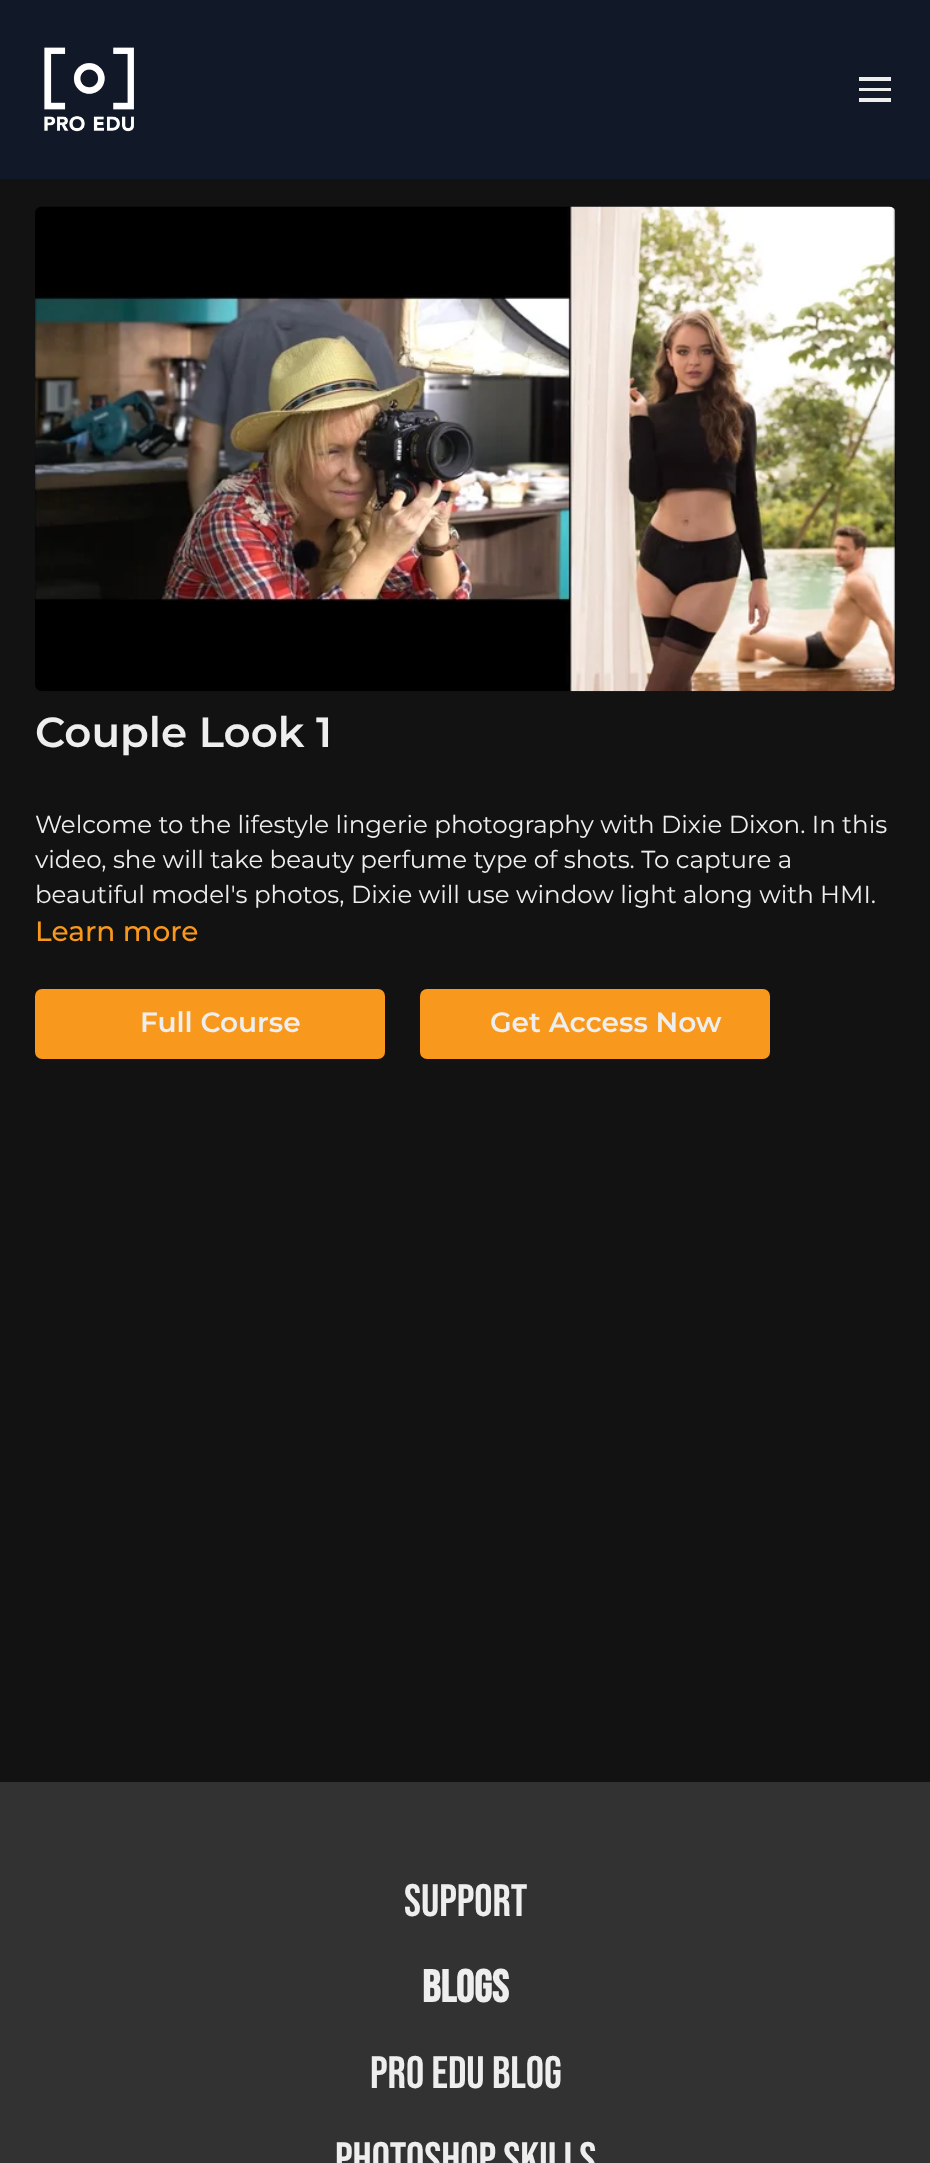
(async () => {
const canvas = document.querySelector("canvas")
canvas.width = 930
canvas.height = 2163
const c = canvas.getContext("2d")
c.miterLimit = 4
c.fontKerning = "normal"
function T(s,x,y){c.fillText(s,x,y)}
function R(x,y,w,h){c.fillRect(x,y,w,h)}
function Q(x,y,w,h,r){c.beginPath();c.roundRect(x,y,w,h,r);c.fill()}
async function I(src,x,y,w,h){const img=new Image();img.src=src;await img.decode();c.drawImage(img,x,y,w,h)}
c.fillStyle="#121212"
R(0,0,930,2163)
c.fillStyle="#111827"
R(0,0,930,179)
await I("1.png",44,47,90,85)
c.fillStyle="#eee"
R(859,77,32,4)
R(859,88,32,3)
R(859,98,32,4)
await I("2.png",35,206,861,486)
c.font="600 42px Montserrat"
T("Couple Look 1",35,747)
c.font="24.5px Montserrat"
T("Welcome to the lifestyle lingerie photography with Dixie Dixon. In this",35,833)
T("video, she will take beauty perfume type of shots. To capture a",35,868)
T("beautiful model's photos, Dixie will use window light along with HMI.",35,903)
c.font="500 28px Montserrat"
c.fillStyle="#f8981d"
T("Learn more",35,941)
Q(35,989,350,70,7)
c.font="600 28px Montserrat"
c.fillStyle="#eee"
T("Full Course",140,1032)
c.fillStyle="#f8981d"
Q(420,989,350,70,7)
c.fillStyle="#eee"
T("Get Access Now",490,1032)
c.fillStyle="#323232"
R(0,1782,930,381)
c.font="45.5px Bebas Neue"
c.fillStyle="#eee"
T("Support",404,1916)
c.font="bold 45.5px Bebas Neue"
T("BLOGS",422,2002)
c.font="45.5px Bebas Neue"
T("PRO EDU Blog",370,2088)
T("Photoshop Skills",335,2174)
})()
